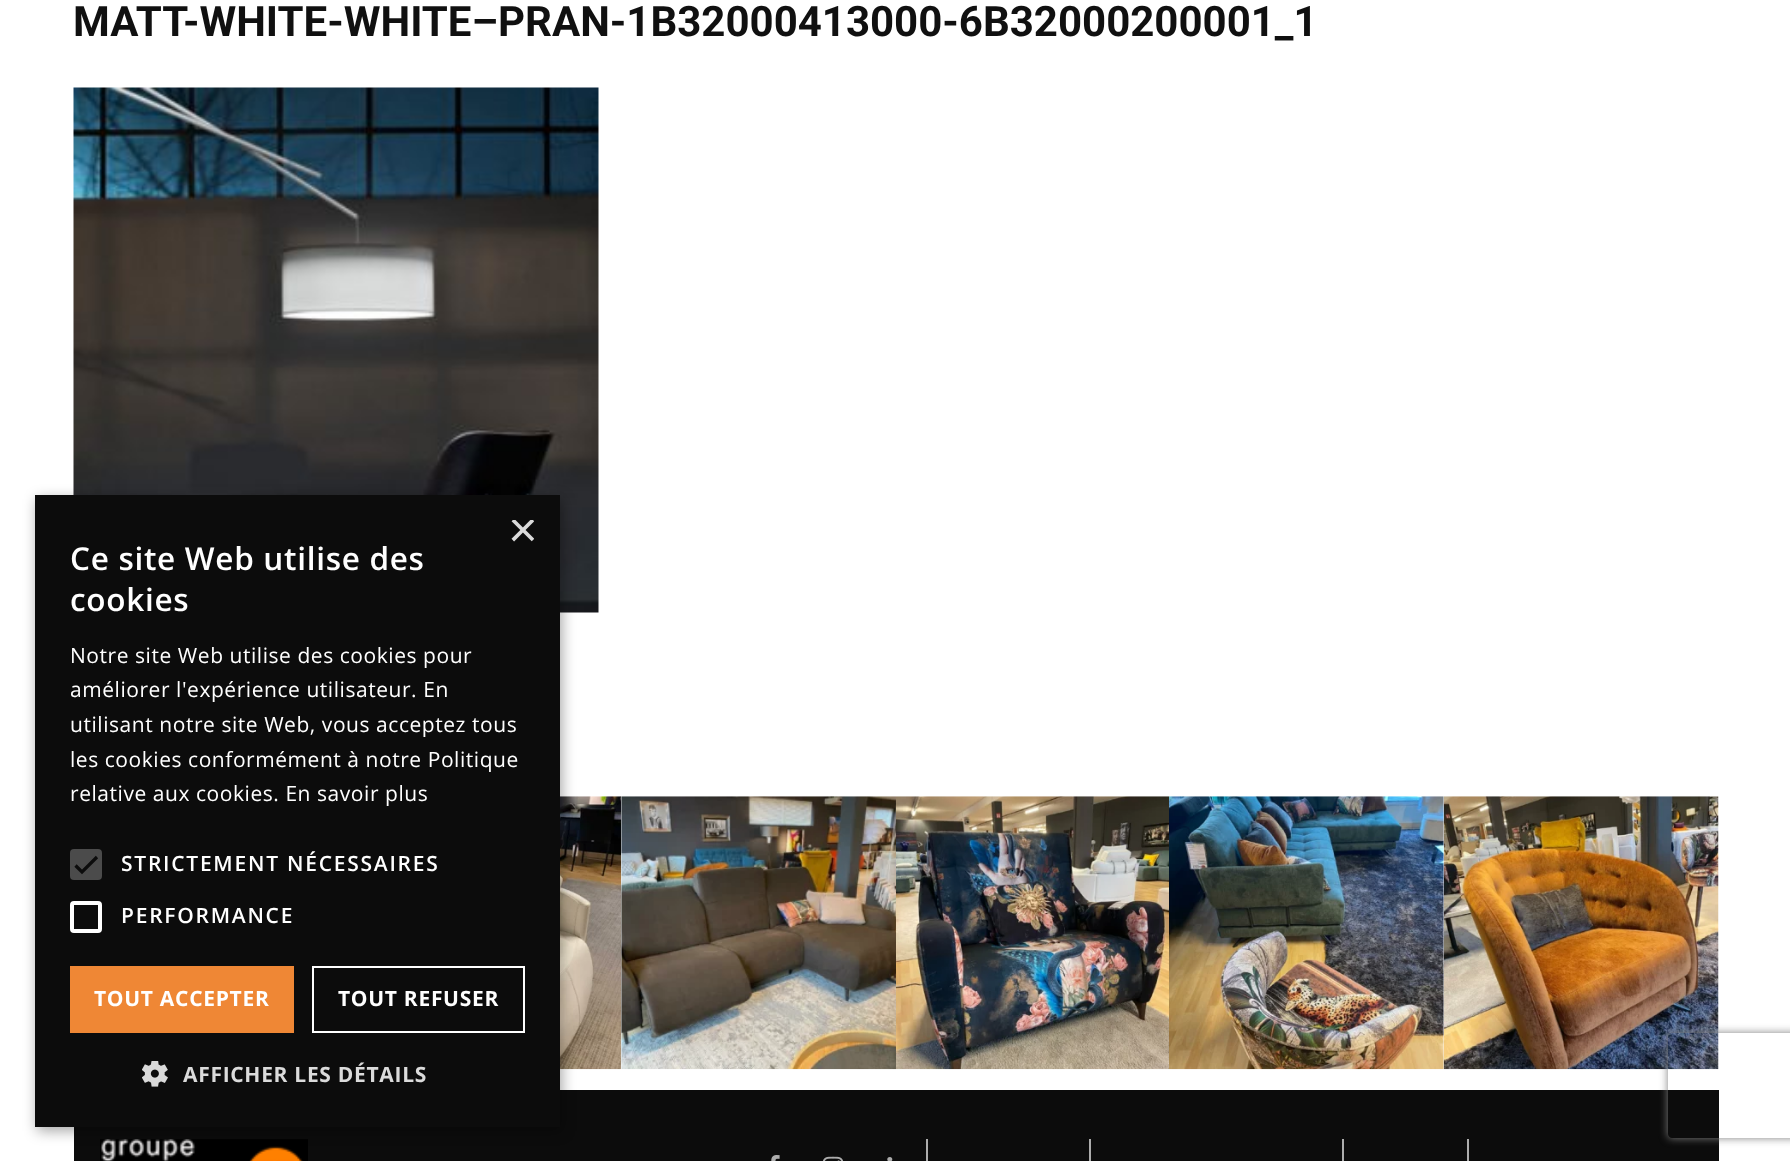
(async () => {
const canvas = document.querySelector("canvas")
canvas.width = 1790
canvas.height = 1161
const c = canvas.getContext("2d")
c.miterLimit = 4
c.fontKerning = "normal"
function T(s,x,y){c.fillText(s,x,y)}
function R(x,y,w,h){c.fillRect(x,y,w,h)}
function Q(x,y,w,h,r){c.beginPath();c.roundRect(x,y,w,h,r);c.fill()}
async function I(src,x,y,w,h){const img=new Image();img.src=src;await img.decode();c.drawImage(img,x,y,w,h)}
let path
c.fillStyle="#fff"
R(0,0,1790,1161)
c.font="bold 42px Roboto"
c.fillStyle="#101010"
T("MATT-WHITE-WHITE–PRAN-1B32000413000-6B32000200001_1",73,36)
await I("1.png",73,87,526,526)
await I("2.png",560,796,62,274)
await I("3.png",621,796,275,274)
await I("4.png",896,796,273,274)
await I("5.png",1169,796,275,274)
await I("6.png",1443,796,276,274)
c.fillStyle="#0c0c0c"
R(74,1090,1645,71)
await I("7.png",100,1139,208,22)
c.fillStyle="#adadad"
R(926,1139,2,22)
await I("8.png",771,1155,9,6)
await I("9.png",823,1156,20,5)
await I("10.png",887,1157,6,4)
R(1089,1139,2,22)
R(1342,1139,2,22)
R(1467,1139,2,22)
c.fillStyle="#00000059"
c.filter="blur(7px)"
c.beginPath()
c.rect(37,499,525,632)
c.fill()
c.filter="none"
c.fillStyle="#0c0c0c"
R(35,495,525,632)
c.save()
c.beginPath()
c.rect(508,520,26,26)
c.clip()
c.font="51px Liberation Sans"
c.fillStyle="#dbdbdb"
T("×",508,547)
c.restore()
c.letterSpacing="0.7px"
c.font="600 31.5px Open Sans"
c.fillStyle="#fff"
T("Ce site Web utilise des",70,570)
T("cookies",70,611)
c.letterSpacing="0.55px"
c.font="21px Open Sans"
T("Notre site Web utilise des cookies pour",70,663)
T("améliorer l'expérience utilisateur. En",70,697)
T("utilisant notre site Web, vous acceptez tous",70,732)
T("les cookies conformément à notre Politique",70,767)
T("relative aux cookies. En savoir plus",70,801)
c.fillStyle="#4b4b4b"
Q(70,849,32,31,4)
path = new Path2D("M75.5 865.5l6.5 6.5l15-15")
c.strokeStyle="#0c0c0c"
c.lineWidth=3.2
c.stroke(path)
c.letterSpacing="1.75px"
c.font="600 21px Open Sans"
c.fillStyle="#fff"
T("STRICTEMENT NÉCESSAIRES",121,871)
c.beginPath()
c.roundRect(72,903,28,28,2)
c.strokeStyle="#fff"
c.lineWidth=4
c.stroke()
T("PERFORMANCE",121,923)
c.fillStyle="#ef8735"
R(70,966,224,67)
c.letterSpacing="0.7px"
c.font="bold 21px Open Sans"
c.fillStyle="#fff"
T("TOUT ACCEPTER",94,1006)
c.lineWidth=2
c.strokeRect(313,967,211,65)
T("TOUT REFUSER",338,1006)
await I("11.png",142,1061,26,26)
c.fillStyle="#dbdbdb"
T("AFFICHER LES DÉTAILS",183,1082)
c.save()
path = new Path2D("M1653 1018h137v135h-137zm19 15h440c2 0 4 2 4 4v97c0 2-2 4-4 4h-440c-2 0-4-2-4-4v-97c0-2 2-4 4-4z")
c.clip(path,"evenodd")
c.fillStyle="#808080"
c.filter="blur(4.5px)"
c.beginPath()
c.roundRect(1668,1033,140,105,4)
c.fill()
c.filter="none"
c.restore()
})()
